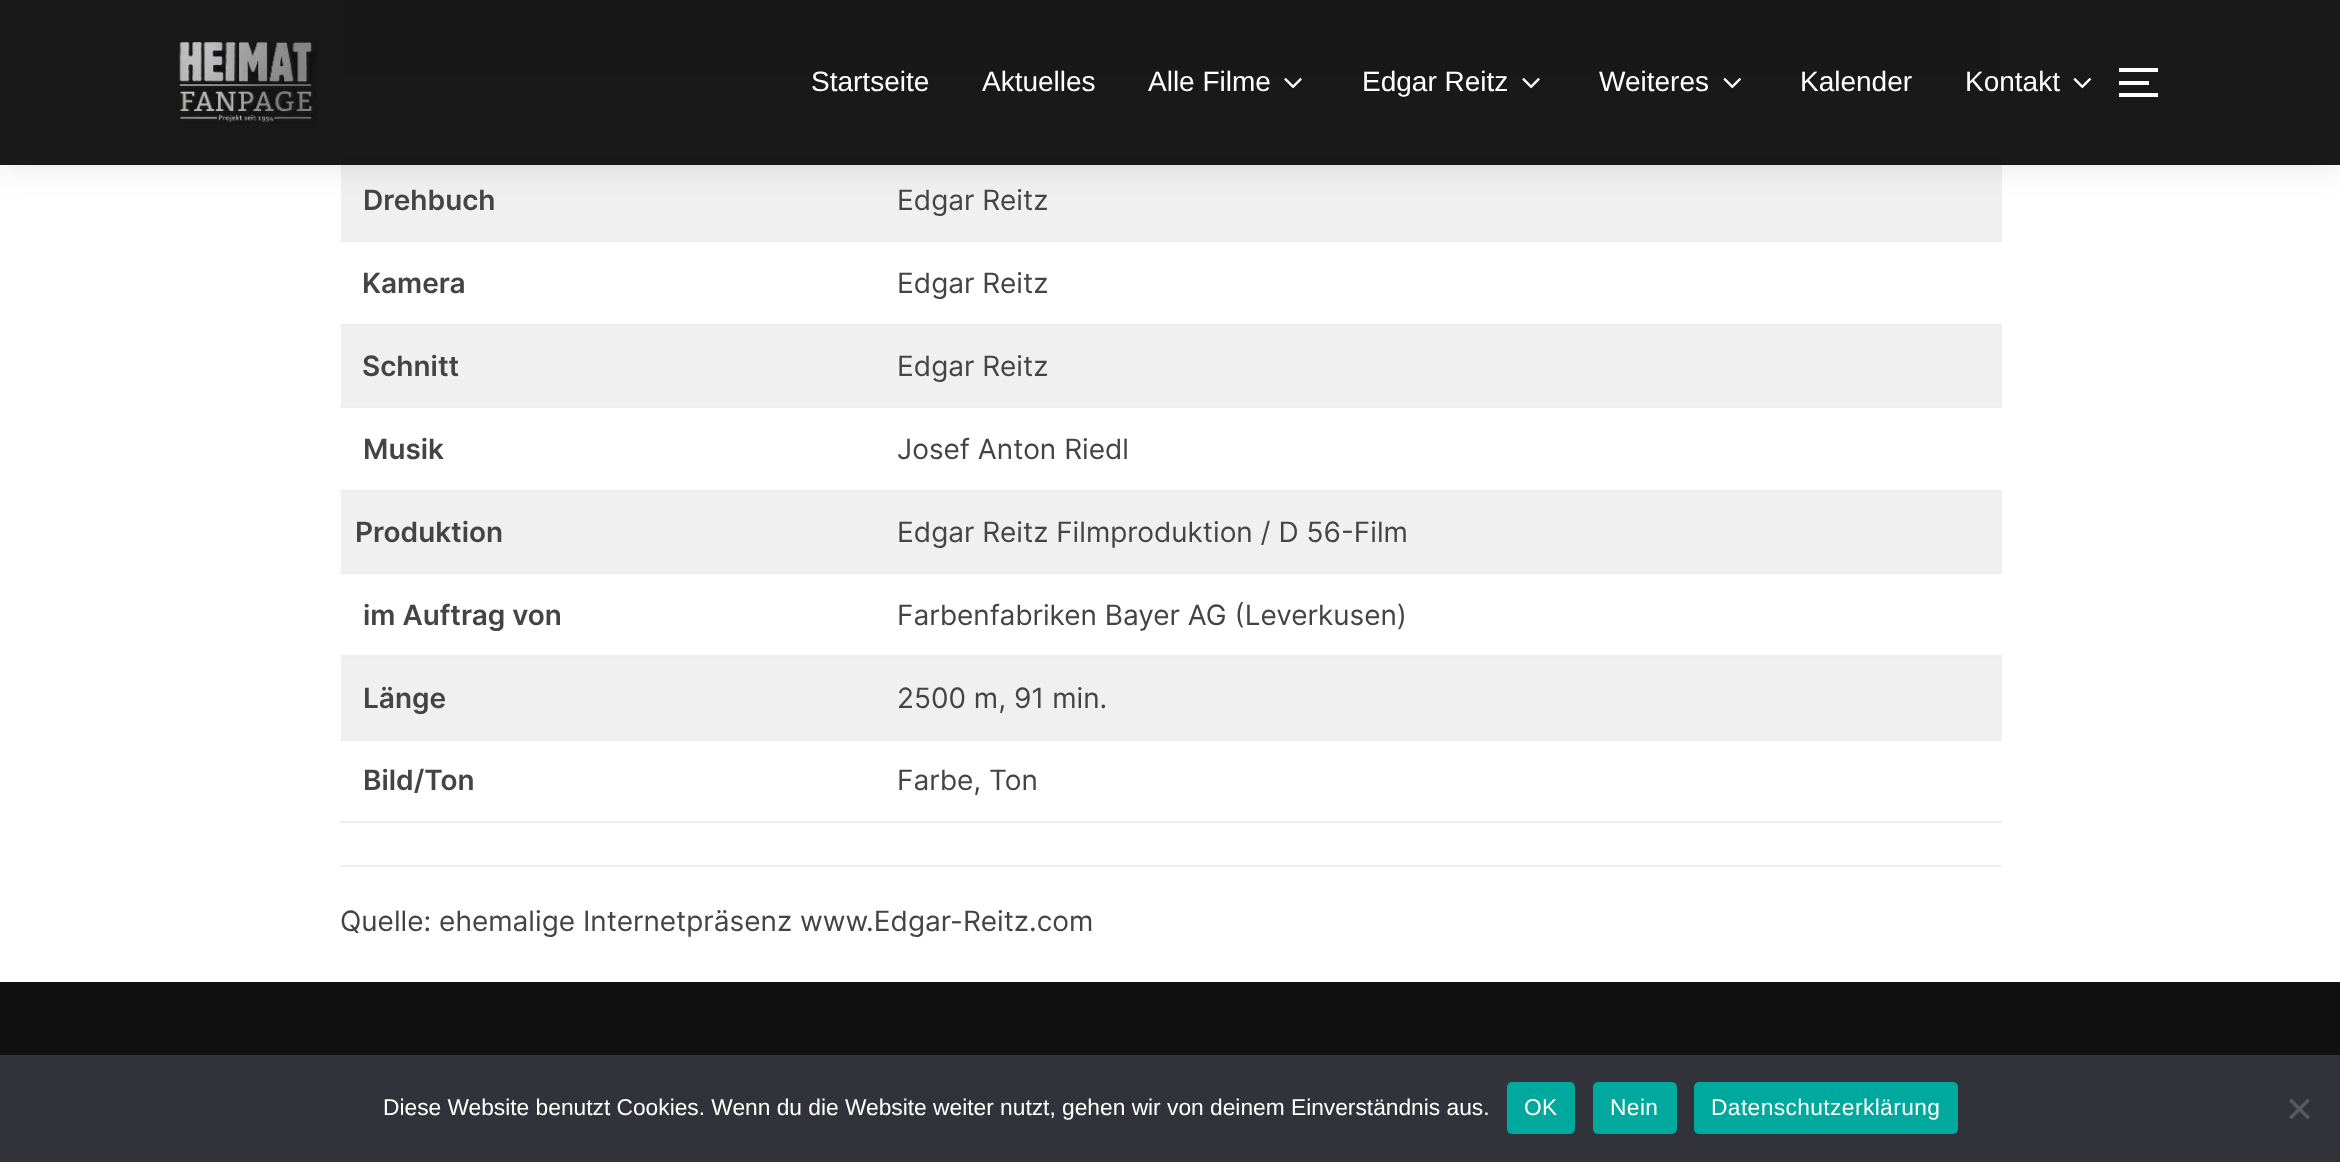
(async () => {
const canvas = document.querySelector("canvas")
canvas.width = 2340
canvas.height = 1162
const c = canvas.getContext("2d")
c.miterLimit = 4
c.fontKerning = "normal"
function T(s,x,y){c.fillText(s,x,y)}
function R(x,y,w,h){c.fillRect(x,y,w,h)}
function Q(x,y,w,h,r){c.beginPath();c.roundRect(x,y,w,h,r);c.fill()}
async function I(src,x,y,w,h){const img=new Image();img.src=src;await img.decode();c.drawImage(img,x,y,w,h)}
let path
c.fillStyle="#fff"
R(0,0,2340,1162)
c.fillStyle="#f0f0f0"
R(341,0,1661,75)
c.fillStyle="#eee"
R(340,75,1662,2)
R(340,158,1662,2)
c.fillStyle="#f0f0f0"
R(341,160,1661,80)
c.save()
path = new Path2D("M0 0h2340v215h-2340zm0 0h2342v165h-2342z")
c.clip(path,"evenodd")
c.fillStyle="#0000001a"
c.filter="blur(16px)"
c.beginPath()
c.rect(-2,-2,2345,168)
c.fill()
c.filter="none"
c.restore()
c.fillStyle="#000000e6"
R(0,0,2340,165)
await I("1.png",179,42,138,82)
c.font="28px Liberation Sans"
c.fillStyle="#fff"
T("Startseite",811,91)
T("Aktuelles",982,91)
T("Alle Filme",1148,91)
await I("2.png",1284,78,18,11)
T("Edgar Reitz",1362,91)
await I("2.png",1522,78,18,11)
T("Weiteres",1599,91)
await I("3.png",1723,78,18,11)
T("Kalender",1800,91)
T("Kontakt",1965,91)
await I("3.png",2073,78,18,11)
R(2119,68,39,4)
R(2119,81,30,4)
R(2119,93,39,4)
c.fillStyle="#f0f0f0"
R(340,865,1662,2)
c.fillStyle="#eee"
R(340,240,1662,2)
c.font="600 28px Inter"
c.fillStyle="#444"
T("Drehbuch",363,210)
c.font="28px Inter"
T("Edgar Reitz",897,210)
c.fillStyle="#eee"
R(340,324,1662,2)
c.font="600 28px Inter"
c.fillStyle="#444"
T("Kamera",362,293)
c.font="28px Inter"
T("Edgar Reitz",897,293)
c.fillStyle="#f0f0f0"
R(341,326,1661,80)
c.fillStyle="#eee"
R(340,406,1662,2)
c.font="600 28px Inter"
c.fillStyle="#444"
T("Schnitt",362,376)
c.font="28px Inter"
T("Edgar Reitz",897,376)
c.fillStyle="#eee"
R(340,490,1662,2)
c.font="600 28px Inter"
c.fillStyle="#444"
T("Musik",363,459)
c.font="28px Inter"
T("Josef Anton Riedl",897,459)
c.fillStyle="#f0f0f0"
R(341,492,1661,80)
c.fillStyle="#eee"
R(340,572,1662,2)
c.font="600 28px Inter"
c.fillStyle="#444"
T("Produktion",355,542)
c.font="28px Inter"
T("Edgar Reitz Filmproduktion / D 56-Film",897,542)
c.fillStyle="#eee"
R(340,655,1662,2)
c.font="600 28px Inter"
c.fillStyle="#444"
T("im Auftrag von",363,625)
c.font="28px Inter"
T("Farbenfabriken Bayer AG (Leverkusen)",897,625)
c.fillStyle="#f0f0f0"
R(341,657,1661,82)
c.fillStyle="#eee"
R(340,739,1662,2)
c.font="600 28px Inter"
c.fillStyle="#444"
T("Länge",363,708)
c.font="28px Inter"
T("2500 m, 91 min.",897,708)
c.fillStyle="#eee"
R(340,821,1662,2)
c.font="600 28px Inter"
c.fillStyle="#444"
T("Bild/Ton",363,790)
c.font="28px Inter"
T("Farbe, Ton",897,790)
T("Quelle: ehemalige Internetpräsenz www.Edgar-Reitz.com",340,931)
c.fillStyle="#101010"
R(0,982,2340,73)
c.fillStyle="#32323a"
R(0,1055,2340,107)
c.font="22.75px Liberation Sans"
c.fillStyle="#fff"
T("Diese Website benutzt Cookies. Wenn du die Website weiter nutzt, gehen wir von deinem Einverständnis aus.",383,1115)
c.fillStyle="#00a99d"
Q(1507,1082,68,52,5)
c.letterSpacing="0.4px"
c.fillStyle="#fff"
T("OK",1524,1115)
c.fillStyle="#00a99d"
Q(1593,1082,84,52,5)
c.fillStyle="#fff"
T("Nein",1610,1115)
c.fillStyle="#00a99d"
Q(1694,1082,264,52,5)
c.fillStyle="#fff"
T("Datenschutzerklärung",1711,1115)
c.fillStyle="#59595d"
path = new Path2D("M2307.5 1098.5l2.5 2.5l-18.5 18.5l-2.5-2.5z")
c.fill(path)
path = new Path2D("M2289 1101l2.5-2.5l18.5 18.5l-2.5 2.5z")
c.fill(path)
})()
